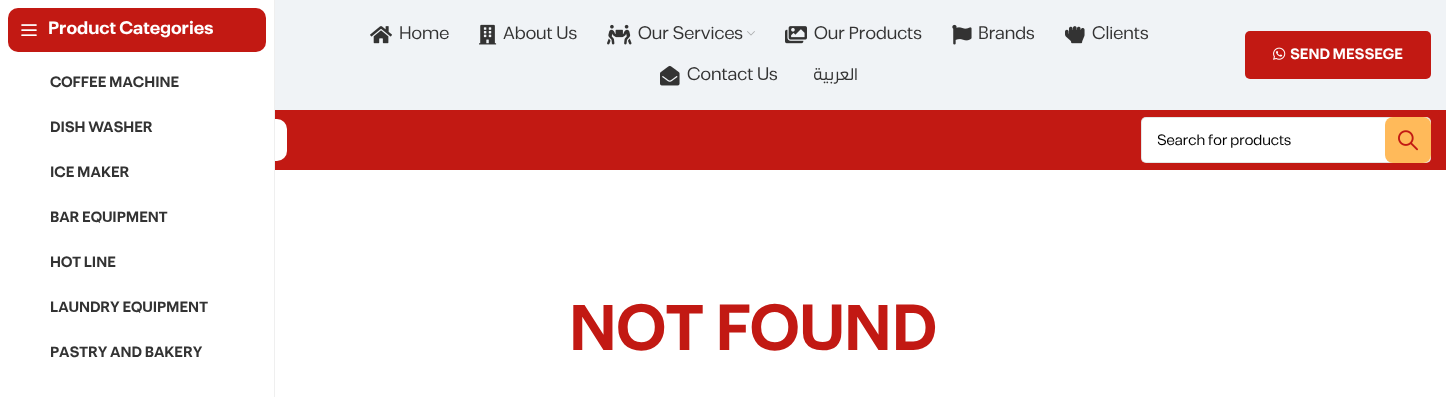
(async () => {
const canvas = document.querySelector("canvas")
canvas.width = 1446
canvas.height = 397
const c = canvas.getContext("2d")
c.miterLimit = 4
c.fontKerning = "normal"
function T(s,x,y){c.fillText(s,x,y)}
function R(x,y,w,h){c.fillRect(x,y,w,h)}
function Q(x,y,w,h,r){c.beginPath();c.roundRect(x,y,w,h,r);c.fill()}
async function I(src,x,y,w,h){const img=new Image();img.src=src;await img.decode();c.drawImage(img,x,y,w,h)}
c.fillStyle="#fff"
R(0,0,1446,397)
c.fillStyle="#c21913"
R(275,110,1171,60)
c.fillStyle="#fff"
Q(75,119,212,42,10)
c.fillStyle="#efefef"
R(274,0,1,397)
c.fillStyle="#c21913"
Q(8,8,258,44,10)
await I("1.png",21,24,16,12)
c.font="bold 17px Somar"
c.fillStyle="#fff"
T("Product Categories",48,34)
c.font="bold 14px Somar"
c.fillStyle="#333"
T("COFFEE MACHINE",50,87)
T("DISH WASHER",50,132)
T("ICE MAKER",50,177)
T("BAR EQUIPMENT",50,222)
T("HOT LINE",50,267)
T("LAUNDRY EQUIPMENT",50,312)
T("PASTRY AND BAKERY",50,357)
c.fillStyle="#f0f3f6"
R(275,0,1171,110)
await I("2.png",370,26,22,18)
c.font="17px Somar"
c.fillStyle="#333"
T("Home",399,39)
await I("3.png",479,24,18,21)
T("About Us",503,39)
await I("4.png",607,24,25,21)
T("Our Services",638,39)
await I("5.png",747,31,8,5)
await I("6.png",785,26,22,18)
T("Our Products",814,39)
await I("7.png",952,24,20,21)
T("Brands",978,39)
await I("8.png",1065,26,20,18)
T("Clients",1092,39)
await I("9.png",660,65,20,21)
T("Contact Us",687,80)
c.direction="rtl"
T("العربية",858,80)
c.fillStyle="#c21913"
Q(1245,31,186,48,5)
await I("10.png",1273,47,13,13)
c.direction="ltr"
c.font="bold 14px Somar"
c.fillStyle="#fff"
T("SEND MESSEGE",1290,59)
Q(1141,117,290,46,5)
c.beginPath()
c.roundRect(1141.5,117.5,289,45,4.5)
c.strokeStyle="#0000001a"
c.stroke()
c.font="14px Somar"
c.fillStyle="#000"
T("Search for products",1157,145)
c.fillStyle="#ffba5a"
Q(1385,117,46,46,8)
await I("11.png",1398,130,20,21)
c.font="bold 60.75px Somar"
c.fillStyle="#c21913"
T("NOT FOUND",569,350)
})()
